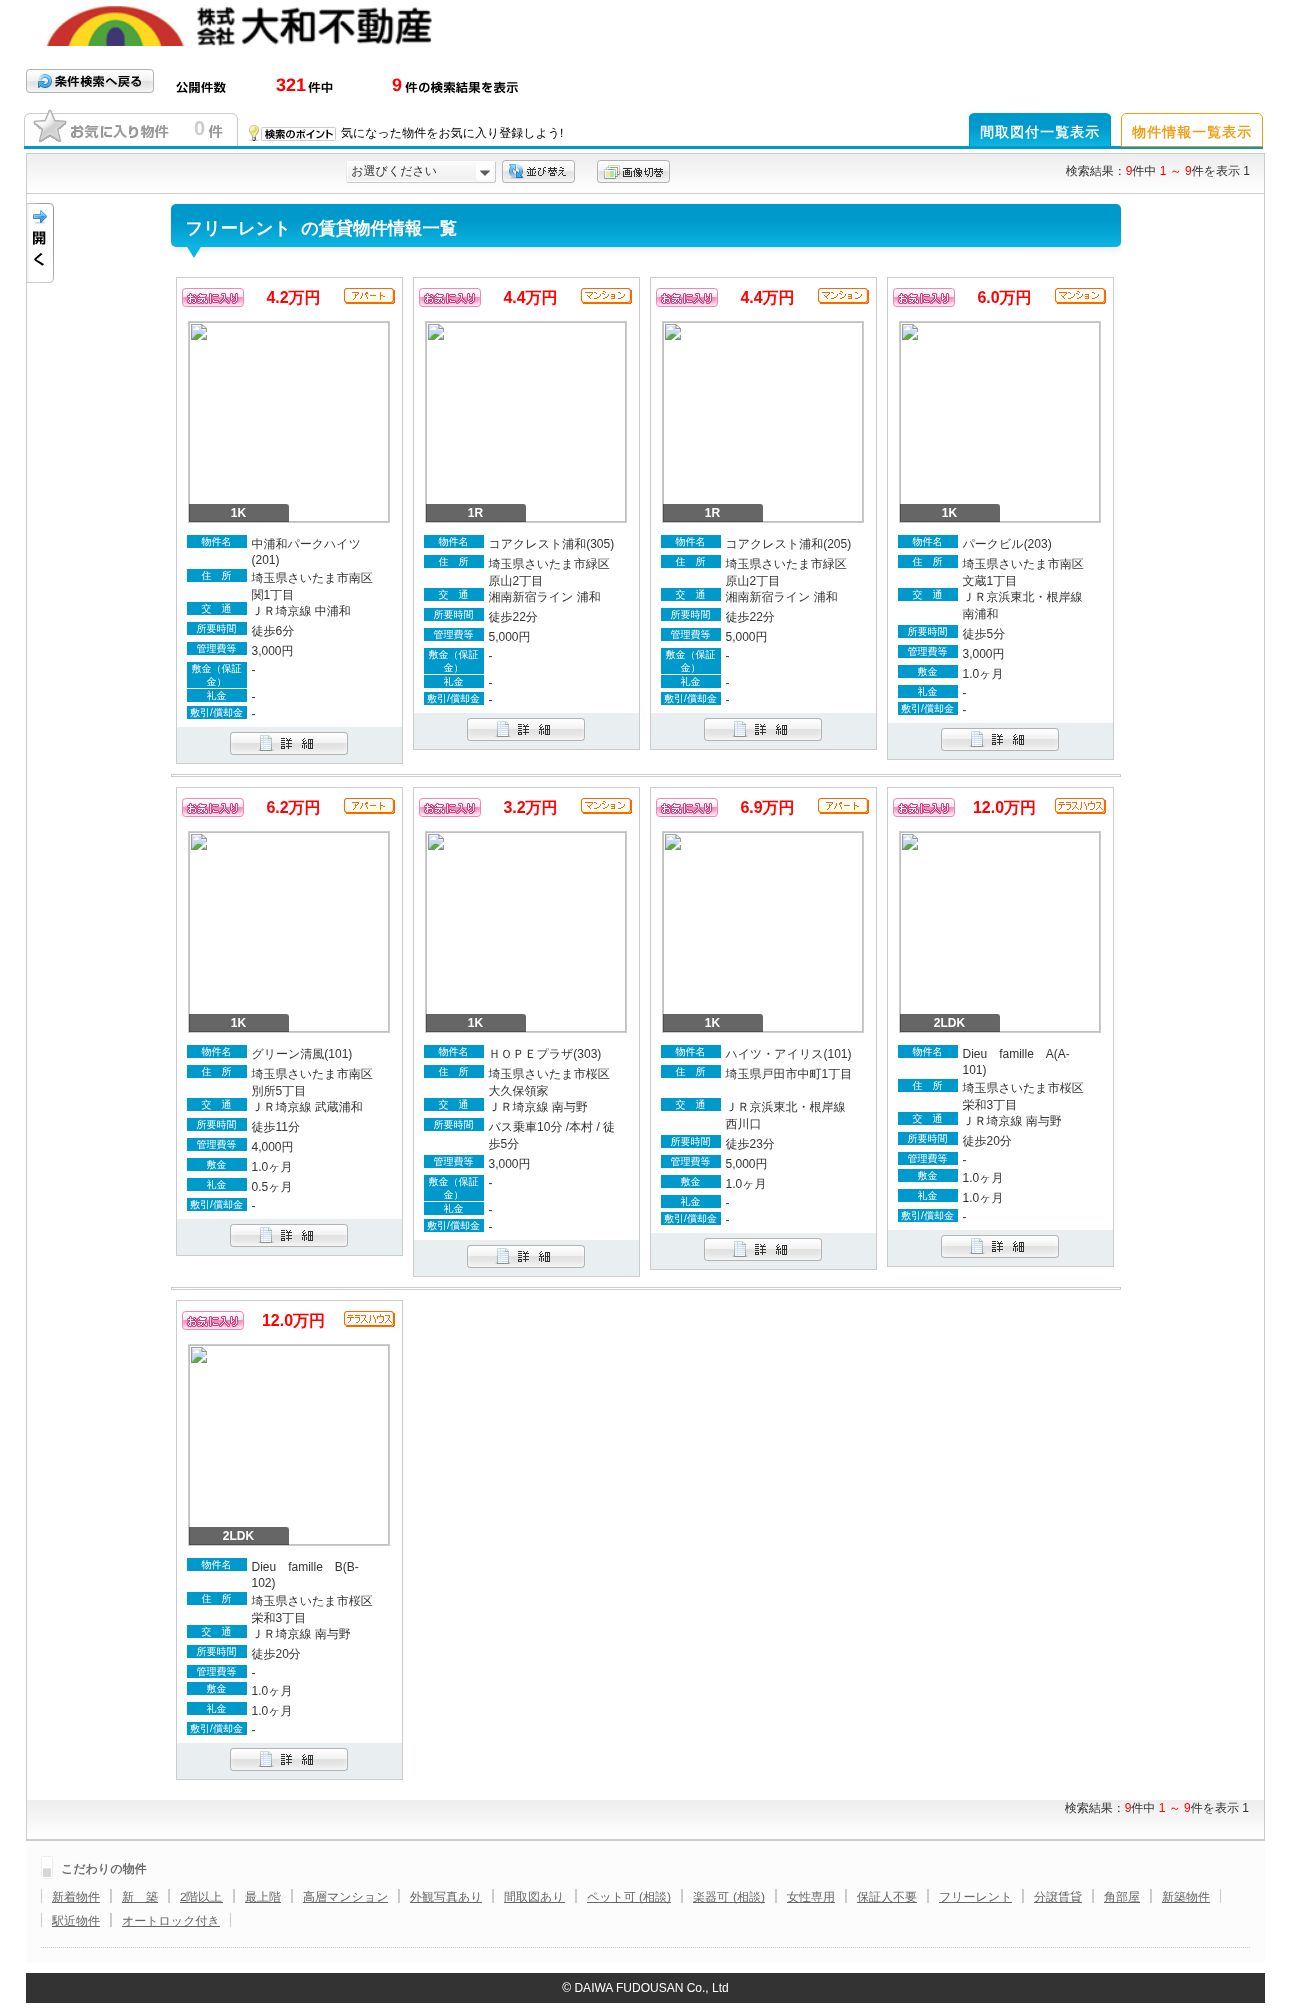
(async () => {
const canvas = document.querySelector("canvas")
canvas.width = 1291
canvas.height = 2015
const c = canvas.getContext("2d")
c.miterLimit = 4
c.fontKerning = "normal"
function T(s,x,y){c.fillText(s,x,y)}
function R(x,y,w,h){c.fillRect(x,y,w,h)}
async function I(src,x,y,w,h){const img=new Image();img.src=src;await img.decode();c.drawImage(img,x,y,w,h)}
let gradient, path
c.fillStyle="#fff"
R(0,0,1291,2015)
await I("1.png",46,6,386,40)
await I("2.png",26,69,128,24)
await I("3.png",176,81,342,13)
c.font="bold 18px Liberation Sans"
c.fillStyle="#f00"
T("321",276,91)
T("9",392,91)
c.fillStyle="#09c"
R(24,146,1239,3)
await I("4.png",24,109,214,37)
c.font="bold 20px Liberation Sans"
c.fillStyle="#ccc"
T("0",194,135)
await I("5.png",249,125,87,16)
c.font="500 12px WenQuanYi Zen Hei"
c.fillStyle="#000"
T("気になった物件をお気に入り登録しよう",341,137)
c.font="12px Liberation Sans"
T("!",560,137)
c.save()
c.beginPath()
c.roundRect(969,113,142,34,[5,5,0,0])
c.clip()
gradient = c.createLinearGradient(1040,114,1040,146)
gradient.addColorStop(.4,"#09c")
gradient.addColorStop(1,"#0cb5e2")
c.fillStyle = gradient
R(969,114,142,32)
c.restore()
c.beginPath()
c.roundRect(969.5,113.5,141,33,[4.5,4.5,0,0])
c.strokeStyle="#09c"
c.stroke()
c.letterSpacing="1px"
c.font="bold 14px WenQuanYi Zen Hei"
c.fillStyle="#fff"
T("間取図付一覧表示",980,137)
c.beginPath()
c.roundRect(1121.5,113.5,141,33,[4.5,4.5,0,0])
c.fill()
c.strokeStyle="#f39c12"
c.stroke()
c.fillStyle="#f39c12"
T("物件情報一覧表示",1132,137)
await I("6.png",26,153,1239,1688)
await I("7.png",27,203,27,80)
c.fillStyle="#fcfcfc"
R(26,1841,1239,122)
path = new Path2D("M41 1947.5h1209")
c.strokeStyle="#ccc"
c.setLineDash([1,1])
c.stroke(path)
await I("8.png",41,1856,12,23)
c.letterSpacing="0px"
c.font="bold 12px WenQuanYi Zen Hei"
c.fillStyle="#666"
T("こだわりの物件",61,1873)
c.fillStyle="#ccc"
R(110,1889,2,14)
R(41,1889,1,14)
c.fillStyle="#666"
R(52,1902,48,1)
c.font="500 12px WenQuanYi Zen Hei"
T("新着物件",52,1901)
c.fillStyle="#ccc"
R(168,1889,2,14)
c.fillStyle="#666"
R(122,1902,36,1)
T("新　築",122,1901)
c.fillStyle="#ccc"
R(233,1889,2,14)
c.font="12px Liberation Sans"
c.fillStyle="#666"
T("2",180,1901)
R(180,1902,43,1)
c.font="500 12px WenQuanYi Zen Hei"
T("階以上",186,1901)
c.fillStyle="#ccc"
R(291,1889,2,14)
c.fillStyle="#666"
R(245,1902,36,1)
T("最上階",245,1901)
c.fillStyle="#ccc"
R(398,1889,2,14)
c.fillStyle="#666"
R(303,1902,85,1)
T("高層マンション",303,1901)
c.fillStyle="#ccc"
R(492,1889,2,14)
c.fillStyle="#666"
R(410,1902,72,1)
T("外観写真あり",410,1901)
c.fillStyle="#ccc"
R(575,1889,2,14)
c.fillStyle="#666"
R(504,1902,61,1)
T("間取図あり",504,1901)
c.fillStyle="#ccc"
R(681,1889,2,14)
c.fillStyle="#666"
R(587,1902,84,1)
T("ペット可",587,1901)
c.font="12px Liberation Sans"
T("(",639,1901)
c.font="500 12px WenQuanYi Zen Hei"
T("相談",643,1901)
c.font="12px Liberation Sans"
T(")",667,1901)
c.fillStyle="#ccc"
R(775,1889,2,14)
c.fillStyle="#666"
R(693,1902,72,1)
c.font="500 12px WenQuanYi Zen Hei"
T("楽器可",693,1901)
c.font="12px Liberation Sans"
T("(",733,1901)
c.font="500 12px WenQuanYi Zen Hei"
T("相談",737,1901)
c.font="12px Liberation Sans"
T(")",761,1901)
c.fillStyle="#ccc"
R(845,1889,2,14)
c.fillStyle="#666"
R(787,1902,48,1)
c.font="500 12px WenQuanYi Zen Hei"
T("女性専用",787,1901)
c.fillStyle="#ccc"
R(927,1889,2,14)
c.fillStyle="#666"
R(857,1902,60,1)
T("保証人不要",857,1901)
c.fillStyle="#ccc"
R(1022,1889,2,14)
c.fillStyle="#666"
R(939,1902,73,1)
T("フリーレント",939,1901)
c.fillStyle="#ccc"
R(1092,1889,2,14)
c.fillStyle="#666"
R(1034,1902,48,1)
T("分譲賃貸",1034,1901)
c.fillStyle="#ccc"
R(1150,1889,2,14)
c.fillStyle="#666"
R(1104,1902,36,1)
T("角部屋",1104,1901)
c.fillStyle="#ccc"
R(1220,1889,1,14)
c.fillStyle="#666"
R(1162,1902,48,1)
T("新築物件",1162,1901)
c.fillStyle="#ccc"
R(110,1913,2,14)
R(41,1913,1,14)
c.fillStyle="#666"
R(52,1926,48,1)
T("駅近物件",52,1925)
c.fillStyle="#ccc"
R(230,1913,1,14)
c.fillStyle="#666"
R(122,1926,98,1)
T("オートロック付き",122,1925)
await I("9.png",26,1973,1239,30)
})()
